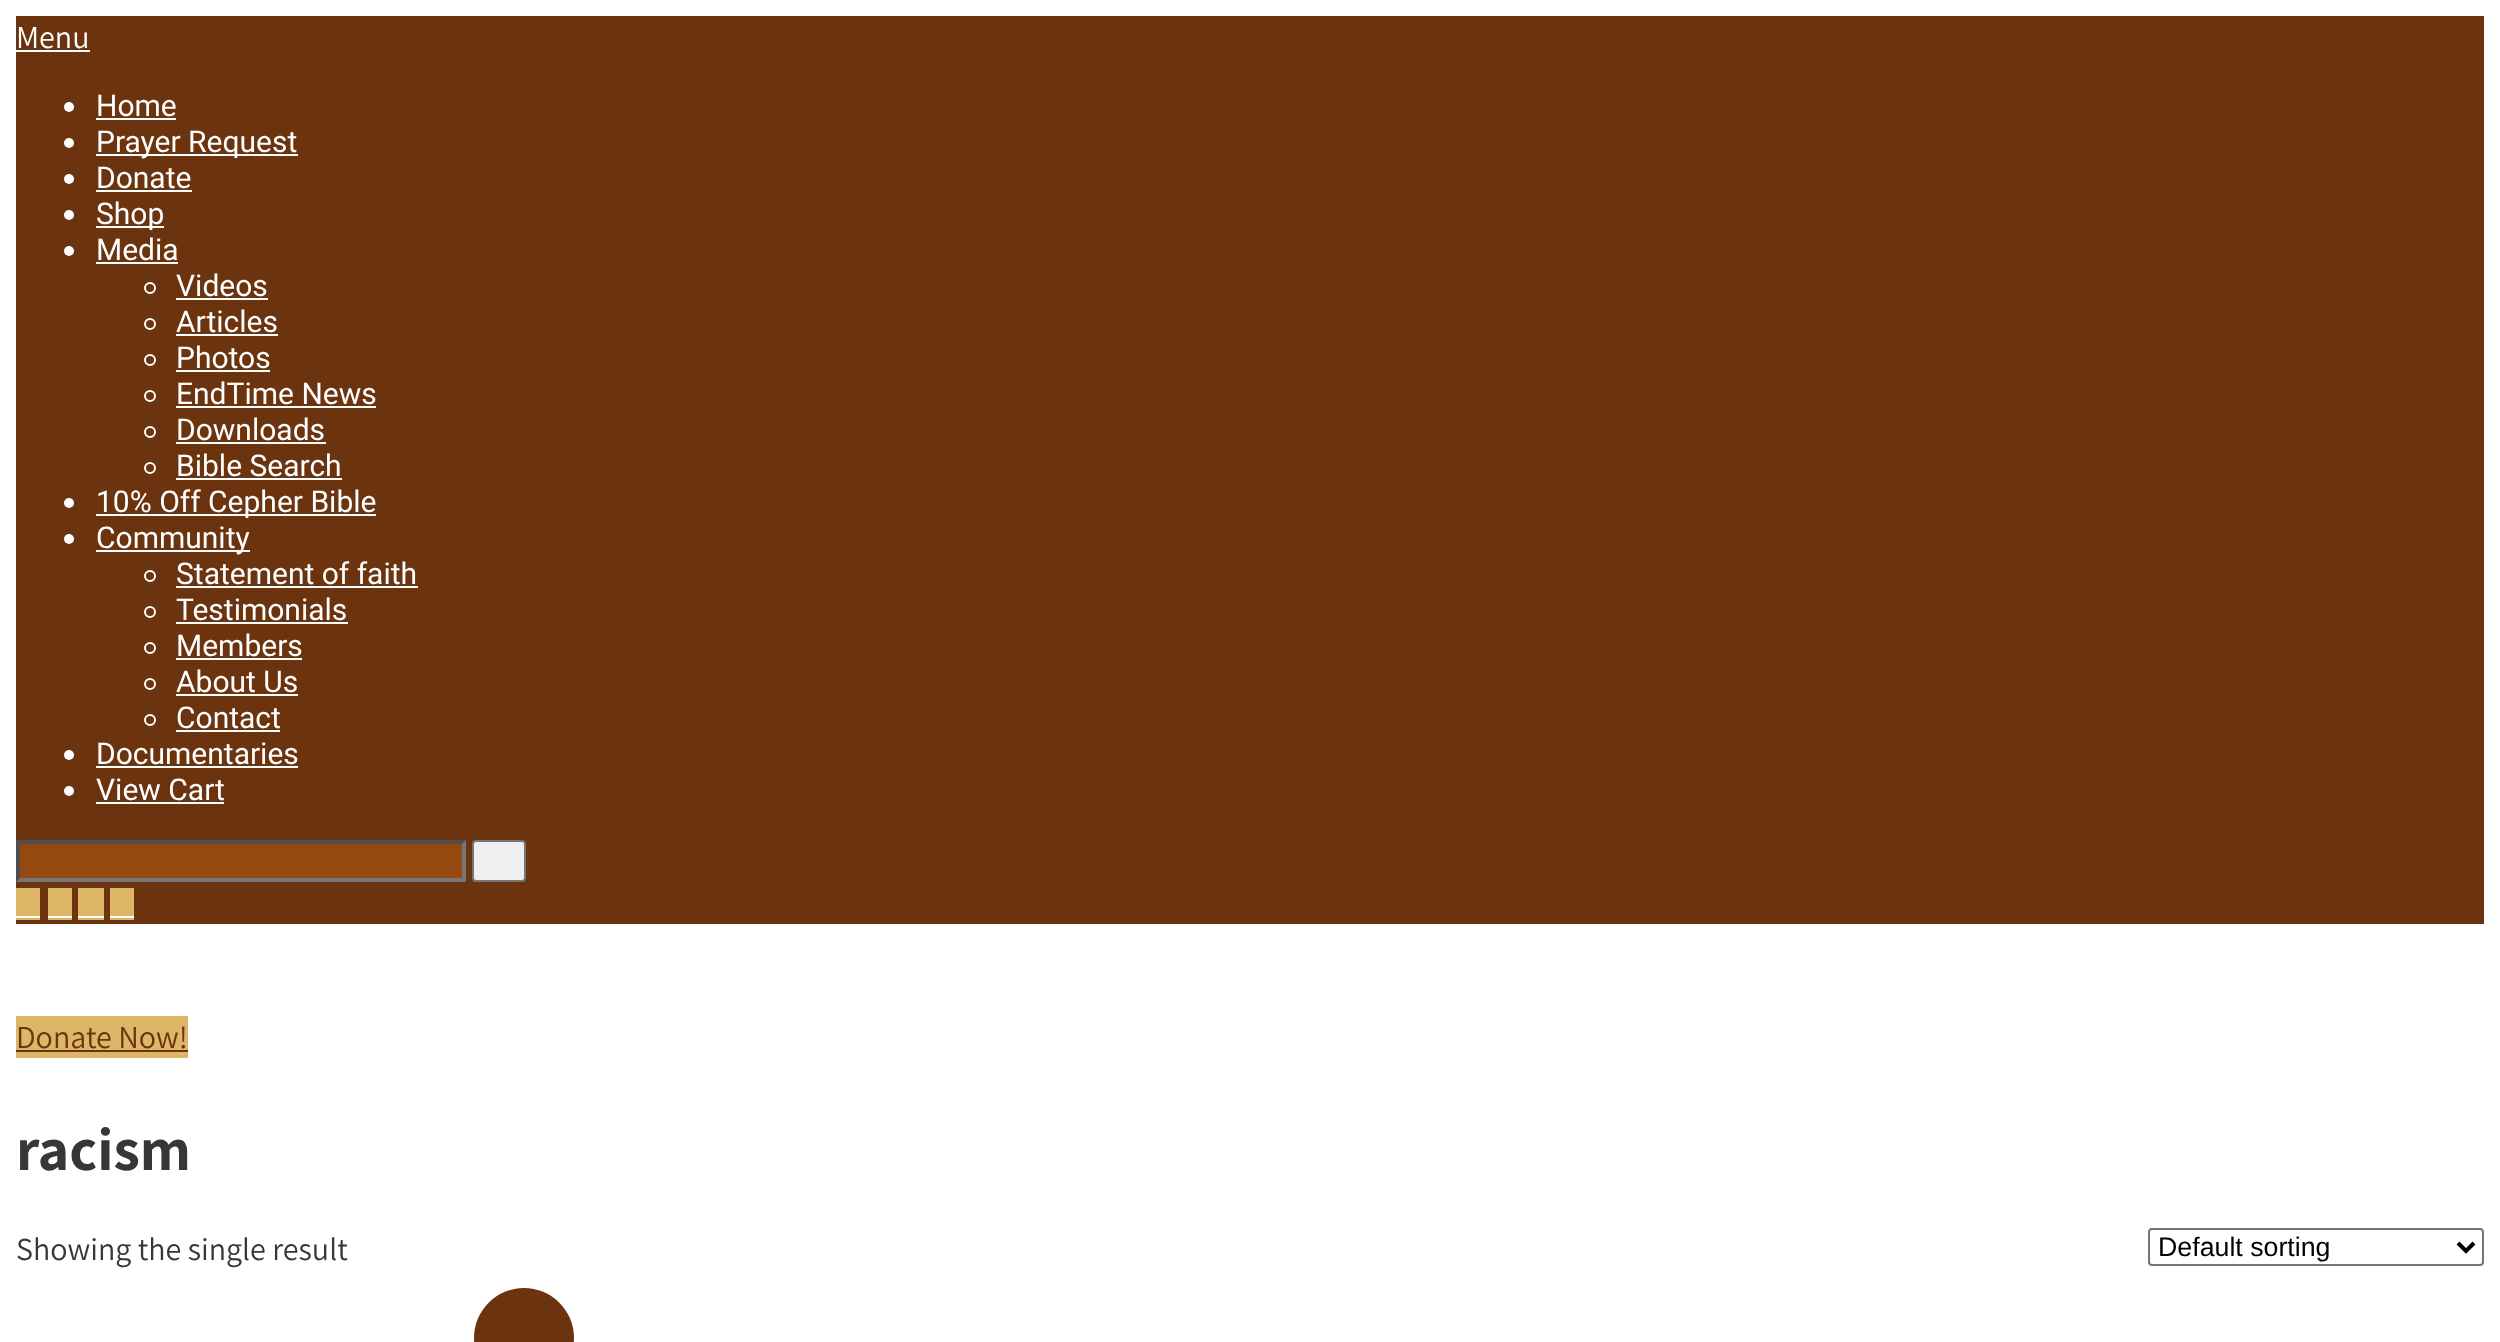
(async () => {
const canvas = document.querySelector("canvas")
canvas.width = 2500
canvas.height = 1342
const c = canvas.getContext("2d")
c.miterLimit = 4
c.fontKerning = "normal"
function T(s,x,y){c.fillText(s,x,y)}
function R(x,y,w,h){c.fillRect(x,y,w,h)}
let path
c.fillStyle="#fff"
R(0,0,2500,1342)
c.fillStyle="#6b330e"
R(16,16,2468,908)
c.font="200 32px Assistant"
c.fillStyle="#fff"
T("Menu",16,48)
R(16,50,74,2)
c.beginPath()
c.arc(69,107,5,0,7)
c.fill()
c.font="30px Roboto"
T("Home",96,116)
R(96,118,80,2)
c.beginPath()
c.arc(69,143,5,0,7)
c.fill()
R(96,154,202,2)
T("Prayer Request",96,152)
c.beginPath()
c.arc(69,179,5,0,7)
c.fill()
T("Donate",96,188)
R(96,190,96,2)
c.beginPath()
c.arc(69,215,5,0,7)
c.fill()
R(96,226,68,2)
T("Shop",96,224)
c.beginPath()
c.arc(69,251,5,0,7)
c.fill()
T("Media",96,260)
R(96,262,82,2)
c.beginPath()
c.arc(150,288,5,0,7)
c.strokeStyle="#fff"
c.lineWidth=2
c.stroke()
T("Videos",176,296)
R(176,298,92,2)
c.beginPath()
c.arc(150,324,5,0,7)
c.stroke()
T("Articles",176,332)
R(176,334,102,2)
c.beginPath()
c.arc(150,360,5,0,7)
c.stroke()
T("Photos",176,368)
R(176,370,94,2)
c.beginPath()
c.arc(150,396,5,0,7)
c.stroke()
T("EndTime News",176,404)
R(176,406,200,2)
c.beginPath()
c.arc(150,432,5,0,7)
c.stroke()
T("Downloads",176,440)
R(176,442,150,2)
c.beginPath()
c.arc(150,468,5,0,7)
c.stroke()
T("Bible Search",176,476)
R(176,478,166,2)
c.beginPath()
c.arc(69,503,5,0,7)
c.fill()
R(96,514,280,2)
T("10% Off Cepher Bible",96,512)
c.beginPath()
c.arc(69,539,5,0,7)
c.fill()
R(96,550,154,2)
T("Community",96,548)
c.beginPath()
c.arc(150,576,5,0,7)
c.stroke()
T("Statement of faith",176,584)
R(176,586,242,2)
c.beginPath()
c.arc(150,612,5,0,7)
c.stroke()
T("Testimonials",176,620)
R(176,622,172,2)
c.beginPath()
c.arc(150,648,5,0,7)
c.stroke()
T("Members",176,656)
R(176,658,126,2)
c.beginPath()
c.arc(150,684,5,0,7)
c.stroke()
T("About Us",176,692)
R(176,694,122,2)
c.beginPath()
c.arc(150,720,5,0,7)
c.stroke()
T("Contact",176,728)
R(176,730,104,2)
c.beginPath()
c.arc(69,755,5,0,7)
c.fill()
T("Documentaries",96,764)
R(96,766,202,2)
c.beginPath()
c.arc(69,791,5,0,7)
c.fill()
T("View Cart",96,800)
R(96,802,128,2)
c.fillStyle="#954810"
R(16,840,450,42)
c.fillStyle="#4f4f4f"
path = new Path2D("M16 840h450l-4 4h-442z")
c.fill(path)
c.fillStyle="#767676"
path = new Path2D("M466 840v42l-4-4v-34z")
c.fill(path)
path = new Path2D("M466 882h-450l4-4h442z")
c.fill(path)
c.fillStyle="#4f4f4f"
path = new Path2D("M16 882v-42l4 4v34z")
c.fill(path)
c.fillStyle="#efefef"
c.beginPath()
c.roundRect(473,841,52,40,3)
c.fill()
c.strokeStyle="#767676"
c.stroke()
c.fillStyle="#ddb667"
R(16,888,24,32)
c.fillStyle="#fff"
R(16,916,24,2)
c.fillStyle="#ddb667"
R(48,888,24,32)
c.fillStyle="#fff"
R(48,916,24,2)
c.fillStyle="#ddb667"
R(78,888,26,32)
c.fillStyle="#fff"
R(78,916,26,2)
c.fillStyle="#ddb667"
R(110,888,24,32)
c.fillStyle="#fff"
R(110,916,24,2)
c.fillStyle="#ddb667"
R(16,1016,172,42)
c.font="200 32px Assistant"
c.fillStyle="#6b330e"
T("Donate Now!",16,1048)
R(16,1050,172,2)
c.font="bold 60px Assistant"
c.fillStyle="#373735"
T("racism",16,1170)
c.font="200 32px Assistant"
T("Showing the single result",16,1260)
c.beginPath()
c.roundRect(2149,1229,334,36,3)
c.stroke()
path = new Path2D("M2458 1243l8 8l8-8")
c.strokeStyle="#000"
c.lineWidth=4
c.stroke(path)
c.font="26.75px Liberation Sans"
c.fillStyle="#000"
T("Default sorting",2158,1256)
c.fillStyle="#6b330e"
c.beginPath()
c.arc(524,1338,50,0,7)
c.fill()
})()
